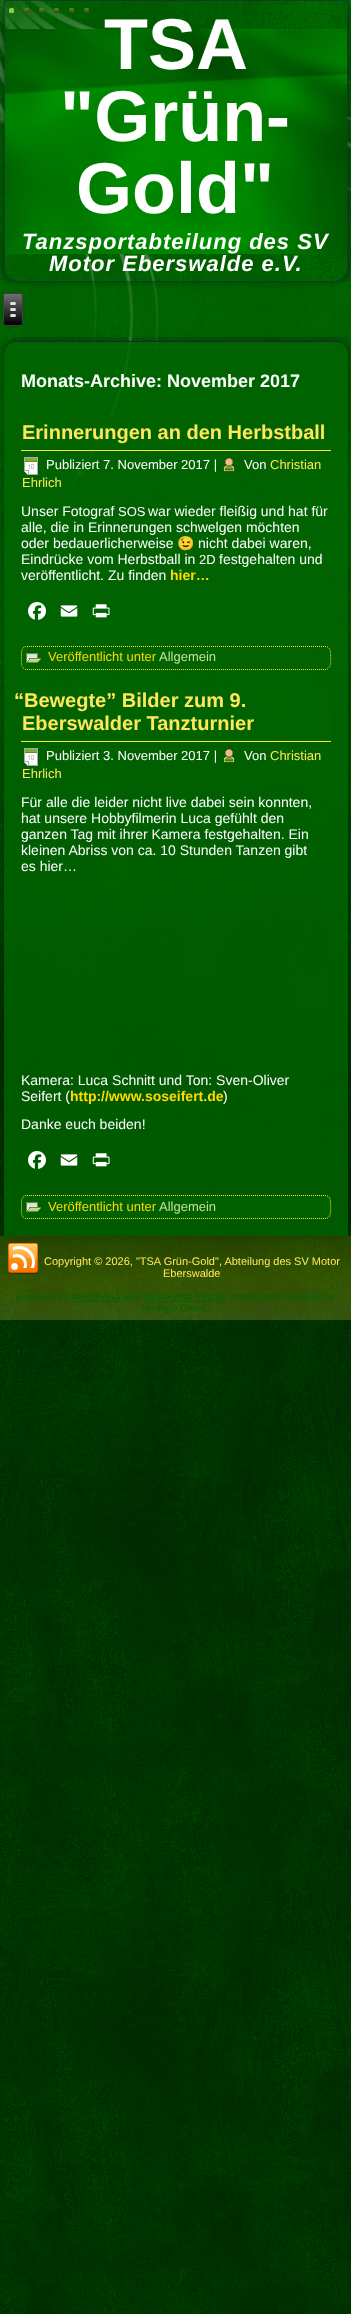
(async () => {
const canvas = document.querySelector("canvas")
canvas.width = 351
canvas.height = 2314
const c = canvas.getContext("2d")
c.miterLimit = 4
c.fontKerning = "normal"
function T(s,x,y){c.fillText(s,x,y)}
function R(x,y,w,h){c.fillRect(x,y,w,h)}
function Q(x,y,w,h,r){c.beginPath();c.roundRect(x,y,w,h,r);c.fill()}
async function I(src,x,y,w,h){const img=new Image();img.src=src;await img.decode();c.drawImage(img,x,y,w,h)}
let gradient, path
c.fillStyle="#fff"
R(0,0,351,2314)
await I("1.png",0,0,351,2314)
c.save()
path = new Path2D("M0 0h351v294h-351zm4 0h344v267c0 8.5-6.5 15-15 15h-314c-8.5 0-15-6.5-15-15z")
c.clip(path,"evenodd")
c.fillStyle="#0000004d"
c.filter="blur(2.5px)"
c.beginPath()
c.roundRect(1,-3,350,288,18)
c.fill()
c.filter="none"
c.restore()
c.beginPath()
c.roundRect(4.5,.5,343,281,[0,0,14.5,14.5])
c.strokeStyle="#16274699"
c.stroke()
c.fillStyle="#95cd42"
Q(9,8,5,5,1.5)
gradient = c.createLinearGradient(27,8,27,13)
gradient.addColorStop(0,"#618924")
gradient.addColorStop(1,"#334913")
c.fillStyle = gradient
Q(24,8,5,5,1.5)
gradient = c.createLinearGradient(42,8,42,13)
gradient.addColorStop(0,"#618924")
gradient.addColorStop(1,"#334913")
c.fillStyle = gradient
Q(39,8,5,5,1.5)
gradient = c.createLinearGradient(57,8,57,13)
gradient.addColorStop(0,"#618924")
gradient.addColorStop(1,"#334913")
c.fillStyle = gradient
Q(54,8,5,5,1.5)
gradient = c.createLinearGradient(72,8,72,13)
gradient.addColorStop(0,"#618924")
gradient.addColorStop(1,"#334913")
c.fillStyle = gradient
Q(69,8,5,5,1.5)
gradient = c.createLinearGradient(87,8,87,13)
gradient.addColorStop(0,"#618924")
gradient.addColorStop(1,"#334913")
c.fillStyle = gradient
Q(84,8,5,5,1.5)
await I("2.png",5,29,342,225)
c.font="bold 72px Liberation Sans"
c.fillStyle="#fff"
T("TSA",104,69)
T("\"Grün-",60,141)
T("Gold\"",76,213)
c.letterSpacing="1px"
c.font="italic bold 22px Liberation Sans"
T("Tanzsportabteilung des SV",22,249)
T("Motor Eberswalde e.V.",49,271)
c.save()
path = new Path2D("M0 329h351v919h-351zm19 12h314c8.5 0 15 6.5 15 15v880h-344v-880c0-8.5 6.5-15 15-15z")
c.clip(path,"evenodd")
c.fillStyle="#0000003d"
c.filter="blur(2.5px)"
c.beginPath()
c.roundRect(1,338,350,901,18)
c.fill()
c.filter="none"
c.restore()
c.fillStyle="#00640080"
R(0,282,351,55)
c.fillStyle="#00000033"
c.filter="blur(1.5px)"
c.beginPath()
c.roundRect(3,293,20,33,3)
c.fill()
c.filter="none"
c.save()
c.beginPath()
c.roundRect(3,293,20,33,3)
c.clip()
gradient = c.createLinearGradient(13,294,13,325)
gradient.addColorStop(0,"#707070")
gradient.addColorStop(1,"#000")
c.fillStyle = gradient
R(3,294,20,31)
c.restore()
c.beginPath()
c.roundRect(3.5,293.5,19,32,2.5)
c.strokeStyle="#404040"
c.stroke()
c.fillStyle="#e0e0e0"
Q(10,302,6,3,1.5)
Q(10,308,6,3,1.5)
Q(10,314,6,3,1.5)
c.fillStyle="#006400cc"
c.beginPath()
c.roundRect(4,341,344,895,[15,15,0,0])
c.fill()
c.fillStyle="#162746"
R(12,341,329,1)
c.letterSpacing="0px"
c.font="bold 18px Liberation Sans"
c.fillStyle="#fff"
T("Monats-Archive: November 2017",21,387)
c.fillStyle="#006400b3"
R(93,415,19,35)
c.fillStyle="#ffe229"
R(21,450,310,1)
c.font="bold 20px Liberation Sans"
c.fillStyle="#ffe75c"
T("Erinnerungen an den Herbstball",22,439)
await I("3.png",223,458,12,15)
c.font="13px Liberation Sans"
c.fillStyle="#fff"
T("Von",244,469)
c.fillStyle="#ffe75c"
T("Christian",270,469)
T("Ehrlich",22,487)
await I("4.png",24,457,14,18)
c.fillStyle="#fff"
T("Publiziert 7. November 2017 |",46,469)
c.font="14px Liberation Sans"
T("Unser Fotograf",21,516)
c.font="13px Liberation Sans"
T("SOS",118,516)
c.font="14px Liberation Sans"
T("war wieder fleißig und hat für",148,516)
T("alle, die in Erinnerungen schwelgen möchten",21,532)
T("oder bedauerlicherweise",21,548)
c.font="14px Noto Color Emoji"
T("😉",177,548)
c.font="14px Liberation Sans"
T("nicht dabei waren,",198,548)
T("Eindrücke vom Herbstball in",21,564)
c.font="13px Liberation Sans"
T("2D",199,564)
c.font="14px Liberation Sans"
T("festgehalten und",219,564)
T("veröffentlicht. Zu finden",21,580)
c.font="bold 14px Liberation Sans"
c.fillStyle="#ffd900"
T("hier…",170,580)
await I("5.png",28,602,18,18)
await I("6.png",60,605,18,12)
await I("7.png",92,604,18,14)
path = new Path2D("M27 646.5h299c4 1 4.5 4 4.5 7.5c0 4.5 2 15.5-5.5 15.5h-299c-5.5-1-4.5-7.5-4.5-11.5c0-4.5-1-11.5 5.5-11.5z")
c.strokeStyle="#ffe229"
c.setLineDash([1,1])
c.stroke(path)
await I("8.png",26,653,15,10)
c.font="13px Liberation Sans"
T("Veröffentlicht unter",48,661)
c.fillStyle="#c2e292"
T("Allgemein",159,661)
c.fillStyle="#006400b3"
R(21,684,310,57)
c.fillStyle="#ffe229"
R(21,741,310,1)
c.font="bold 20px Liberation Sans"
c.fillStyle="#ffe75c"
T("“Bewegte” Bilder zum 9.",14,707)
T("Eberswalder Tanzturnier",22,730)
await I("9.png",223,749,12,15)
c.font="13px Liberation Sans"
c.fillStyle="#fff"
T("Von",244,760)
c.fillStyle="#ffe75c"
T("Christian",270,760)
T("Ehrlich",22,778)
await I("10.png",24,748,14,18)
c.fillStyle="#fff"
T("Publiziert 3. November 2017 |",46,760)
c.font="14px Liberation Sans"
T("Für alle die leider nicht live dabei sein konnten,",21,807)
T("hat unsere Hobbyfilmerin Luca gefühlt den",21,823)
T("ganzen Tag mit ihrer Kamera festgehalten. Ein",21,839)
T("kleinen Abriss von ca. 10 Stunden Tanzen gibt",21,855)
T("es hier…",21,871)
T("Kamera: Luca Schnitt und Ton: Sven-Oliver",21,1085)
T("Seifert (",21,1101)
c.font="bold 14px Liberation Sans"
c.fillStyle="#ffd900"
T("http://www.soseifert.de",70,1101)
c.font="14px Liberation Sans"
c.fillStyle="#fff"
T(")",223,1101)
T("Danke euch beiden!",21,1129)
await I("11.png",28,1151,18,18)
await I("12.png",60,1154,18,12)
await I("13.png",92,1153,18,14)
c.fillStyle="#006400b3"
Q(21,1195,310,24,6)
path = new Path2D("M27 1195.5h299c4 1 4.5 4 4.5 7.5c0 4.5 2 15.5-5.5 15.5h-299c-5.5-1-4.5-7.5-4.5-11.5c0-4.5-1-11.5 5.5-11.5z")
c.stroke(path)
await I("14.png",26,1202,15,10)
c.font="13px Liberation Sans"
c.fillStyle="#ffd900"
T("Veröffentlicht unter",48,1211)
c.fillStyle="#c2e292"
T("Allgemein",159,1211)
gradient = c.createLinearGradient(176,1236,176,1320)
gradient.addColorStop(0,"#b2980033")
gradient.addColorStop(.5,"#ffd90033")
gradient.addColorStop(1,"#ffe44c33")
c.fillStyle = gradient
R(0,1236,351,84)
await I("15.png",7,1243,32,31)
c.font="11px Liberation Sans"
c.fillStyle="#ffe75c"
T("Copyright © 2026, \"TSA Grün-Gold\", Abteilung des SV Motor",44,1265)
T("Eberswalde",163,1277)
c.font="10px Liberation Sans"
c.fillStyle="#006400"
T("Powered by WordPress and WordPress Theme created with Artisteer by",16,1300)
R(71,1301,50,1)
R(143,1301,83,1)
T("Rodrigo Giese.",142,1311)
})()
